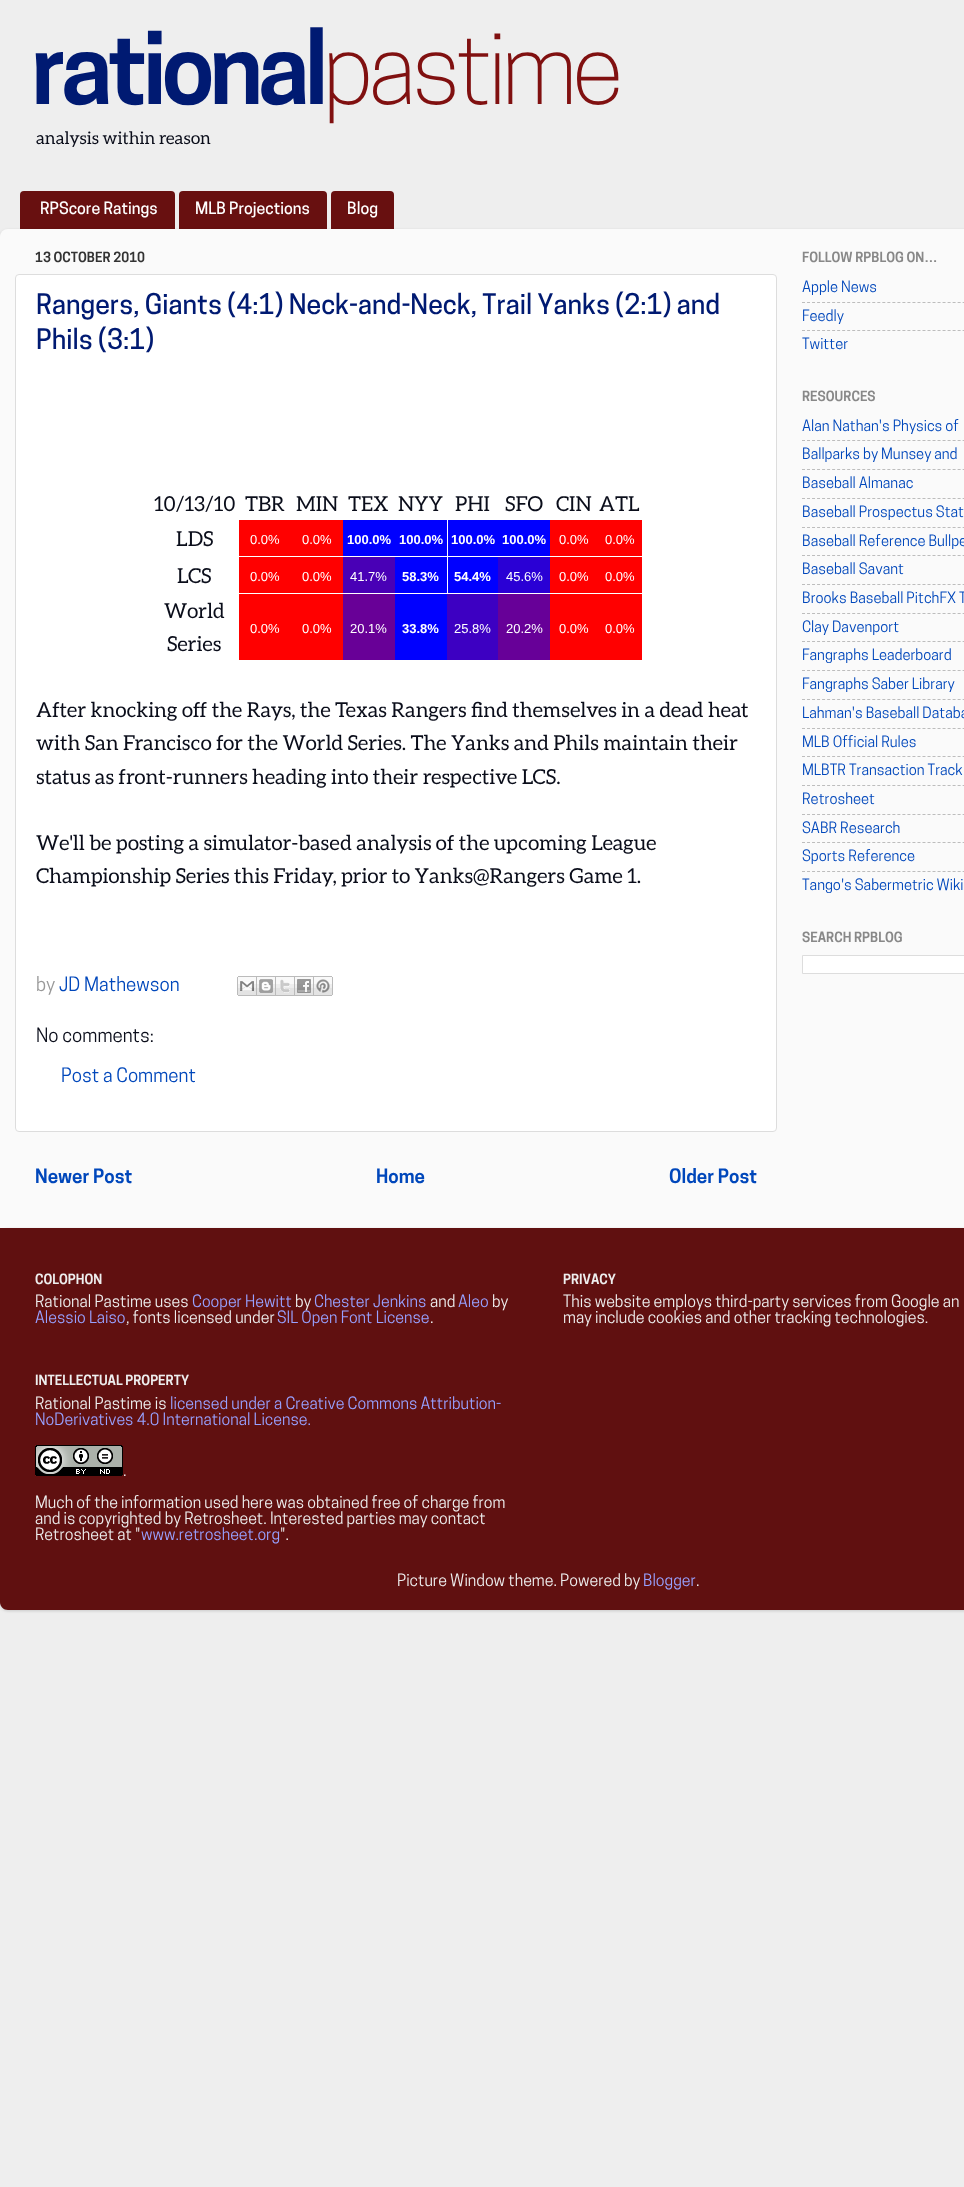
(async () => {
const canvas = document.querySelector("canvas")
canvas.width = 964
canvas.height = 2187
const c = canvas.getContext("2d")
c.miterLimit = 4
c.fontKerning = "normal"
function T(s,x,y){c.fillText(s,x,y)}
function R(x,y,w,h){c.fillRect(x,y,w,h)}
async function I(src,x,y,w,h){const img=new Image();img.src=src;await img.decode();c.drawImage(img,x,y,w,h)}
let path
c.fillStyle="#eee"
R(0,0,964,2187)
c.letterSpacing="-5.25px"
c.font="600 96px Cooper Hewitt"
c.fillStyle="#001a72"
T("rational",31,104)
c.font="300 96px Cooper Hewitt"
c.fillStyle="#801010"
T("pastime",323,104)
c.letterSpacing="0px"
c.font="17.25px Aleo"
c.fillStyle="#0a0d1a"
T("analysis within reason",36,144)
c.fillStyle="#681010"
c.beginPath()
c.roundRect(20,191,155,38,[4,4,0,0])
c.fill()
c.font="500 16px Cooper Hewitt"
c.fillStyle="#fff"
T("RPScore Ratings",40,214)
c.fillStyle="#681010"
c.beginPath()
c.roundRect(179,191,148,38,[4,4,0,0])
c.fill()
c.fillStyle="#fff"
T("MLB Projections",195,214)
c.fillStyle="#681010"
c.beginPath()
c.roundRect(331,191,63,38,[4,4,0,0])
c.fill()
c.fillStyle="#fff"
T("Blog",347,214)
c.save()
path = new Path2D("M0 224h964v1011h-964zm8 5h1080c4.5 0 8 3.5 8 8v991h-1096v-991c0-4.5 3.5-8 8-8z")
c.clip(path,"evenodd")
c.fillStyle="#00000026"
c.filter="blur(1.5px)"
c.beginPath()
c.roundRect(0,230,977,999,8)
c.fill()
c.filter="none"
c.restore()
await I("1.png",0,229,964,999)
c.font="600 13.25px Cooper Hewitt"
c.fillStyle="#333"
T("13 OCTOBER 2010",35,262)
c.fillStyle="#fff"
c.beginPath()
c.roundRect(15.5,274.5,761,857,3.5)
c.fill()
c.strokeStyle="#ddd"
c.stroke()
c.font="500 26.7px Cooper Hewitt"
c.fillStyle="#001a72"
T("Rangers, Giants (4:1) Neck-and-Neck, Trail Yanks (2:1) and",36,314)
T("Phils (3:1)",36,349)
c.font="20.65px Aleo"
c.fillStyle="#0a0d1a"
T("10/13/10",154,511)
T("TBR",245,511)
T("MIN",296,511)
T("TEX",348,511)
T("NYY",398,511)
T("PHI",455,511)
T("SFO",505,511)
T("CIN",556,511)
T("ATL",599,511)
T("LDS",176,546)
c.fillStyle="#f00"
R(239,520,104,36)
c.font="13px Liberation Sans"
c.fillStyle="#fff"
T("0.0%",250,544)
T("0.0%",302,544)
c.fillStyle="#00f"
R(343,520,104,36)
c.font="bold 13px Liberation Sans"
c.fillStyle="#fff"
T("100.0%",347,544)
T("100.0%",399,544)
c.fillStyle="#00f"
R(448,520,102,36)
c.fillStyle="#fff"
T("100.0%",451,544)
T("100.0%",502,544)
c.fillStyle="#f00"
R(550,520,92,36)
c.font="13px Liberation Sans"
c.fillStyle="#fff"
T("0.0%",559,544)
T("0.0%",605,544)
c.font="20.65px Aleo"
c.fillStyle="#0a0d1a"
T("LCS",177,583)
c.fillStyle="#f00"
R(239,557,104,36)
c.font="13px Liberation Sans"
c.fillStyle="#fff"
T("0.0%",250,581)
T("0.0%",302,581)
c.fillStyle="#4900b6"
R(343,557,52,36)
c.fillStyle="#fff"
T("41.7%",350,581)
c.fillStyle="#00f"
R(395,557,52,36)
c.font="bold 13px Liberation Sans"
c.fillStyle="#fff"
T("58.3%",402,581)
c.fillStyle="#00f"
R(448,557,50,36)
c.fillStyle="#fff"
T("54.4%",454,581)
c.fillStyle="#2a00d5"
R(498,557,52,36)
c.font="13px Liberation Sans"
c.fillStyle="#fff"
T("45.6%",506,581)
c.fillStyle="#f00"
R(550,557,92,36)
c.fillStyle="#fff"
T("0.0%",559,581)
T("0.0%",605,581)
c.font="20.65px Aleo"
c.fillStyle="#0a0d1a"
T("World",164,618)
T("Series",167,651)
c.fillStyle="#f00"
R(239,594,104,66)
c.font="13px Liberation Sans"
c.fillStyle="#fff"
T("0.0%",250,633)
T("0.0%",302,633)
c.fillStyle="#680097"
R(343,594,52,66)
c.fillStyle="#fff"
T("20.1%",350,633)
c.fillStyle="#00f"
R(395,594,52,66)
c.font="bold 13px Liberation Sans"
c.fillStyle="#fff"
T("33.8%",402,633)
c.fillStyle="#3d00c2"
R(447,594,51,66)
c.font="13px Liberation Sans"
c.fillStyle="#fff"
T("25.8%",454,633)
c.fillStyle="#670098"
R(498,594,52,66)
c.fillStyle="#fff"
T("20.2%",506,633)
c.fillStyle="#f00"
R(550,594,92,66)
c.fillStyle="#fff"
T("0.0%",559,633)
T("0.0%",605,633)
c.font="20.65px Aleo"
c.fillStyle="#0a0d1a"
T("After knocking off the Rays, the Texas Rangers find themselves in a dead heat",36,717)
T("with San Francisco for the World Series. The Yanks and Phils maintain their",36,750)
T("status as front-runners heading into their respective LCS.",36,784)
T("We'll be posting a simulator-based analysis of the upcoming League",36,850)
T("Championship Series this Friday, prior to Yanks@Rangers Game 1.",36,883)
c.font="18.75px Cooper Hewitt"
c.fillStyle="#999"
T("by",36,991)
c.fillStyle="#0047bb"
T("JD Mathewson",59,991)
await I("2.png",237,976,20,20)
await I("3.png",257,976,19,20)
await I("4.png",276,976,19,20)
await I("5.png",295,976,19,20)
await I("6.png",314,976,19,20)
c.fillStyle="#0a0d1a"
T("No comments:",36,1042)
c.fillStyle="#0047bb"
T("Post a Comment",61,1082)
c.font="600 18.75px Cooper Hewitt"
T("Newer Post",35,1183)
T("Home",376,1183)
T("Older Post",669,1183)
c.font="600 13.25px Cooper Hewitt"
c.fillStyle="#888"
T("FOLLOW RPBLOG ON…",802,262)
c.font="14.75px Cooper Hewitt"
c.fillStyle="#0047bb"
T("Apple News",802,292)
path = new Path2D("M802 302.5h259")
c.strokeStyle="#bdbdbd"
c.setLineDash([3,2.02])
c.stroke(path)
T("Feedly",802,321)
path = new Path2D("M802 330.5h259")
c.stroke(path)
T("Twitter",802,349)
c.font="600 13.25px Cooper Hewitt"
c.fillStyle="#888"
T("RESOURCES",802,401)
c.font="14.75px Cooper Hewitt"
c.fillStyle="#0047bb"
T("Alan Nathan's Physics of",802,431)
path = new Path2D("M802 440.5h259")
c.stroke(path)
T("Ballparks by Munsey and",802,459)
path = new Path2D("M802 469.5h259")
c.stroke(path)
T("Baseball Almanac",802,488)
path = new Path2D("M802 498.5h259")
c.stroke(path)
T("Baseball Prospectus Stat",802,517)
path = new Path2D("M802 527.5h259")
c.stroke(path)
T("Baseball Reference Bullpe",802,546)
path = new Path2D("M802 555.5h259")
c.stroke(path)
T("Baseball Savant",802,574)
path = new Path2D("M802 584.5h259")
c.stroke(path)
T("Brooks Baseball PitchFX T",802,603)
path = new Path2D("M802 613.5h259")
c.stroke(path)
T("Clay Davenport",802,632)
path = new Path2D("M802 641.5h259")
c.stroke(path)
T("Fangraphs Leaderboard",802,660)
path = new Path2D("M802 670.5h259")
c.stroke(path)
T("Fangraphs Saber Library",802,689)
path = new Path2D("M802 699.5h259")
c.stroke(path)
T("Lahman's Baseball Databa",802,718)
path = new Path2D("M802 728.5h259")
c.stroke(path)
T("MLB Official Rules",802,747)
path = new Path2D("M802 756.5h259")
c.stroke(path)
T("MLBTR Transaction Track",802,775)
path = new Path2D("M802 785.5h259")
c.stroke(path)
T("Retrosheet",802,804)
path = new Path2D("M802 814.5h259")
c.stroke(path)
T("SABR Research",802,833)
path = new Path2D("M802 842.5h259")
c.stroke(path)
T("Sports Reference",802,861)
path = new Path2D("M802 871.5h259")
c.stroke(path)
T("Tango's Sabermetric Wiki",802,890)
c.font="600 13.25px Cooper Hewitt"
c.fillStyle="#888"
T("SEARCH RPBLOG",802,942)
c.fillStyle="#fff"
c.beginPath()
c.rect(802.5,955.5,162,18)
c.fill()
c.strokeStyle="#ddd"
c.setLineDash([])
c.stroke()
c.fillStyle="#00000026"
c.filter="blur(1.5px)"
c.beginPath()
c.roundRect(0,1229,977,382,8)
c.fill()
c.filter="none"
c.fillStyle="#601010"
path = new Path2D("M0 1228h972v374c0 4.5-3.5 8-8 8h-956c-4.5 0-8-3.5-8-8z")
c.fill(path)
c.fillStyle="#eee"
T("COLOPHON",35,1284)
c.font="16px Cooper Hewitt"
T("Rational Pastime uses",35,1307)
c.fillStyle="#98a1ff"
T("Cooper Hewitt",192,1307)
c.fillStyle="#eee"
T("by",295,1307)
c.fillStyle="#98a1ff"
T("Chester Jenkins",314,1307)
c.fillStyle="#eee"
T("and",430,1307)
c.fillStyle="#98a1ff"
T("Aleo",458,1307)
c.fillStyle="#eee"
T("by",492,1307)
c.fillStyle="#98a1ff"
T("Alessio Laiso",35,1323)
c.fillStyle="#eee"
T(", fonts licensed under",126,1323)
c.fillStyle="#98a1ff"
T("SIL Open Font License",277,1323)
c.fillStyle="#eee"
T(".",430,1323)
c.font="600 13.25px Cooper Hewitt"
T("INTELLECTUAL PROPERTY",35,1385)
c.font="16px Cooper Hewitt"
T("Rational Pastime is",35,1409)
c.fillStyle="#98a1ff"
T("licensed under a Creative Commons Attribution-",170,1409)
T("NoDerivatives 4.0 International License.",35,1425)
await I("7.png",35,1445,88,31)
c.fillStyle="#eee"
T(".",123,1476)
T("Much of the information used here was obtained free of charge from",35,1508)
T("and is copyrighted by Retrosheet. Interested parties may contact",35,1524)
T("Retrosheet at \"",35,1540)
c.fillStyle="#98a1ff"
T("www.retrosheet.org",141,1540)
c.fillStyle="#eee"
T("\".",280,1540)
c.font="600 13.25px Cooper Hewitt"
T("PRIVACY",563,1284)
c.font="16px Cooper Hewitt"
T("This website employs third-party services from Google an",563,1307)
T("may include cookies and other tracking technologies.",563,1323)
T("Picture Window theme. Powered by",397,1586)
c.fillStyle="#98a1ff"
T("Blogger",643,1586)
c.fillStyle="#eee"
T(".",696,1586)
})()
